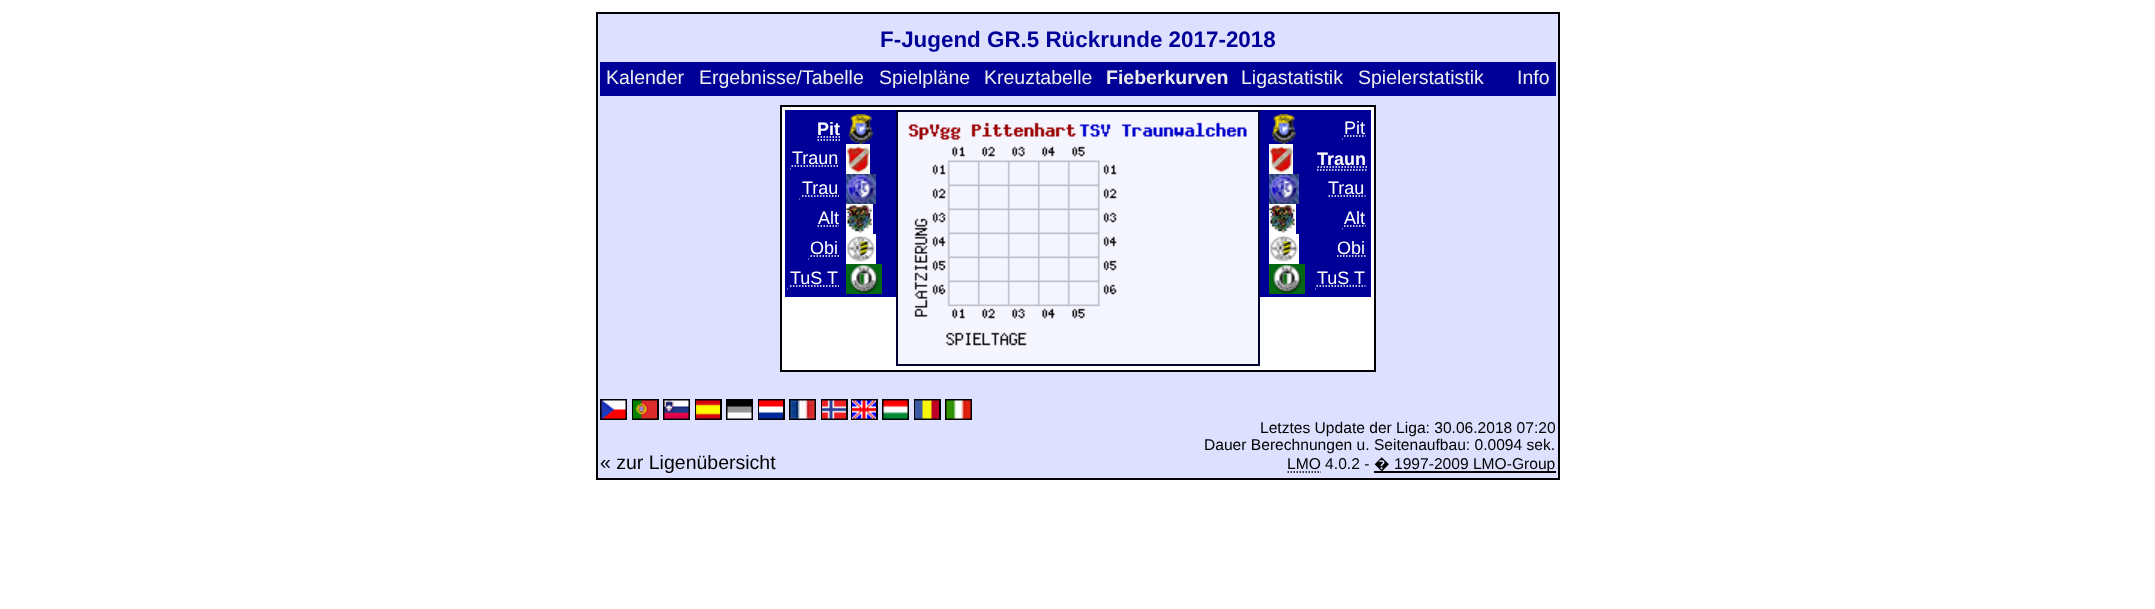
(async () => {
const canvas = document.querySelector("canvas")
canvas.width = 2155
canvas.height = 609
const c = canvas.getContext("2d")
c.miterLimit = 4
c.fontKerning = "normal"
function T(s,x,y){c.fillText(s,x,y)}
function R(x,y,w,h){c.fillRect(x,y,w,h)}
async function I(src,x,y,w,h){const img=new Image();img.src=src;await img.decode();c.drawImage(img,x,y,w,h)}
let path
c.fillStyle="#fff"
R(0,0,2155,609)
c.fillStyle="#dde0ff"
c.beginPath()
c.rect(597,13,962,466)
c.fill()
c.strokeStyle="#000"
c.lineWidth=2
c.stroke()
c.font="bold 22.4px Liberation Sans"
c.fillStyle="#009"
T("F-Jugend GR.5 Rückrunde 2017-2018",880,47)
R(600,62,956,34)
c.font="19.5px Liberation Sans"
c.fillStyle="#eee"
T("Kalender",606,84)
T("Ergebnisse/Tabelle",699,84)
T("Spielpläne",879,84)
T("Kreuztabelle",984,84)
c.font="bold 19.5px Liberation Sans"
T("Fieberkurven",1106,84)
c.font="19.5px Liberation Sans"
T("Ligastatistik",1241,84)
T("Spielerstatistik",1358,84)
T("Info",1517,84)
c.fillStyle="#fff"
c.beginPath()
c.rect(781,106,594,265)
c.fill()
c.stroke()
c.fillStyle="#009"
R(785,110,111,187)
c.font="bold 18px Liberation Sans"
c.fillStyle="#fff"
T("Pit",817,135)
path = new Path2D("M817.5 140h22.5m-22.5-3h23")
c.strokeStyle="#fff"
c.lineWidth=1.5
c.setLineDash([1.5,1.5])
c.stroke(path)
await I("1.png",848,114,26,30)
c.font="18px Liberation Sans"
T("Traun",792,164)
path = new Path2D("M790.5 169h49.5")
c.stroke(path)
c.fillStyle="#009"
R(791,168,49,2)
path = new Path2D("M791.5 166h47.5")
c.stroke(path)
await I("2.png",846,144,24,30)
c.fillStyle="#fff"
T("Trau",802,194)
path = new Path2D("M799.5 199h40.5")
c.stroke(path)
c.fillStyle="#009"
R(800,198,40,2)
path = new Path2D("M802 196h37")
c.stroke(path)
await I("3.png",846,174,30,30)
c.fillStyle="#fff"
T("Alt",818,224)
path = new Path2D("M817.5 226h21.5")
c.stroke(path)
await I("4.png",846,204,27,30)
T("Obi",810,254)
path = new Path2D("M808.5 259h31.5")
c.stroke(path)
c.fillStyle="#009"
R(809,258,31,2)
path = new Path2D("M810.5 256h28.5")
c.stroke(path)
await I("5.png",846,234,30,30)
c.fillStyle="#fff"
T("TuS T",790,284)
path = new Path2D("M787.5 289h52.5")
c.stroke(path)
c.fillStyle="#009"
R(788,288,52,2)
path = new Path2D("M790 286h49")
c.stroke(path)
await I("6.png",846,264,36,30)
c.fillStyle="#f5f5ff"
c.beginPath()
c.rect(897,111,362,254)
c.fill()
c.strokeStyle="#003"
c.lineWidth=2
c.setLineDash([])
c.stroke()
await I("7.png",908,122,339,224)
c.fillStyle="#009"
R(1260,110,111,187)
await I("1.png",1271,114,26,30)
c.fillStyle="#fff"
T("Pit",1344,134)
path = new Path2D("M1342.5 139h25.5")
c.strokeStyle="#fff"
c.lineWidth=1.5
c.setLineDash([1.5,1.5])
c.stroke(path)
c.fillStyle="#009"
R(1343,138,25,2)
path = new Path2D("M1344 136h21.5")
c.stroke(path)
await I("8.png",1269,144,24,30)
c.font="bold 18px Liberation Sans"
c.fillStyle="#fff"
T("Traun",1317,165)
path = new Path2D("M1317 170h51m-50.5-3h50")
c.stroke(path)
await I("9.png",1269,174,30,30)
c.font="18px Liberation Sans"
T("Trau",1328,194)
path = new Path2D("M1328.5 196h37")
c.stroke(path)
await I("10.png",1269,204,27,30)
T("Alt",1344,224)
path = new Path2D("M1342.5 229h25.5")
c.stroke(path)
c.fillStyle="#009"
R(1343,228,25,2)
path = new Path2D("M1344 226h21.5")
c.stroke(path)
await I("11.png",1269,234,30,30)
c.fillStyle="#fff"
T("Obi",1337,254)
path = new Path2D("M1337 256h28.5")
c.stroke(path)
await I("12.png",1269,264,36,30)
T("TuS T",1317,284)
path = new Path2D("M1315.5 289h52.5")
c.stroke(path)
c.fillStyle="#009"
R(1316,288,52,2)
path = new Path2D("M1316.5 286h49")
c.stroke(path)
c.strokeStyle="#000"
c.lineWidth=2
c.setLineDash([])
c.strokeRect(601,400,25,19)
c.strokeRect(633,400,25,19)
c.strokeRect(664,400,25,19)
c.strokeRect(696,400,25,19)
c.strokeRect(727,400,25,19)
c.strokeRect(759,400,25,19)
c.strokeRect(790,400,25,19)
c.strokeRect(822,400,25,19)
c.strokeRect(852,400,25,19)
c.strokeRect(883,400,25,19)
c.strokeRect(915,400,25,19)
c.strokeRect(946,400,25,19)
await I("13.png",601,400,25,19)
await I("14.png",633,400,24,19)
await I("15.png",664,400,25,19)
await I("16.png",696,400,24,19)
await I("17.png",727,401,25,18)
await I("18.png",759,400,24,19)
await I("19.png",790,400,25,19)
await I("20.png",822,400,24,19)
await I("21.png",852,400,24,19)
await I("22.png",883,400,25,19)
await I("23.png",915,400,24,19)
await I("24.png",946,400,25,19)
c.font="19.5px Liberation Sans"
c.fillStyle="#000"
T("« zur Ligenübersicht",600,469)
c.font="15.6px Liberation Sans"
T("Letztes Update der Liga: 30.06.2018 07:20",1260,433)
T("Dauer Berechnungen u. Seitenaufbau: 0.0094 sek.",1204,450)
T("LMO 4.0.2 -",1287,469)
path = new Path2D("M1287.5 472h33.5")
c.lineWidth=1.5
c.setLineDash([1.5,1.5])
c.stroke(path)
R(1374,471,182,2)
c.font="15.6px Noto Sans"
T("�",1374,469)
c.font="15.6px Liberation Sans"
T("1997-2009 LMO-Group",1394,469)
})()
